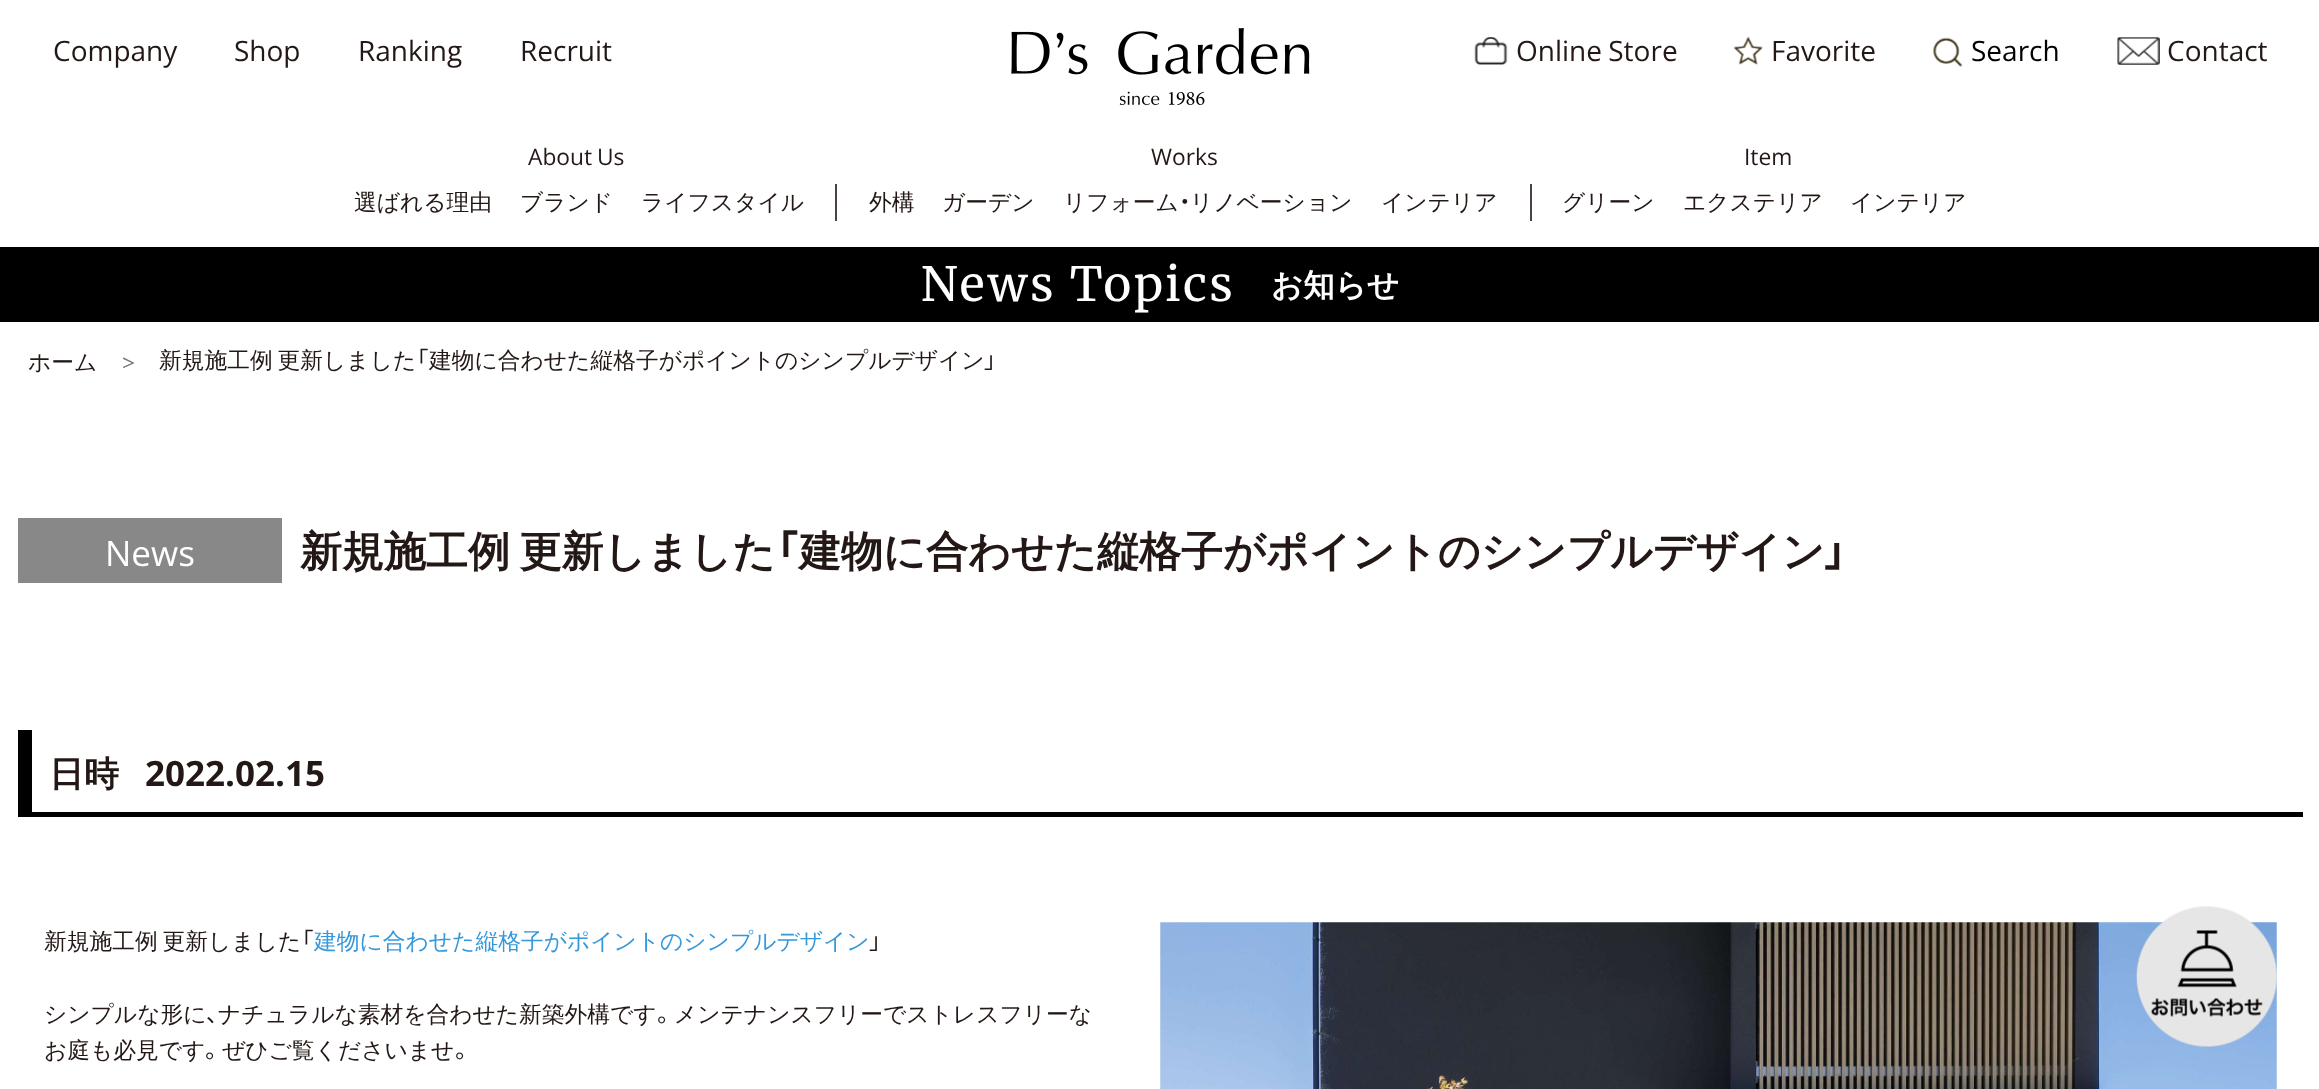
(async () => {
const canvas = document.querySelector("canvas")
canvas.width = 2319
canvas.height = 1089
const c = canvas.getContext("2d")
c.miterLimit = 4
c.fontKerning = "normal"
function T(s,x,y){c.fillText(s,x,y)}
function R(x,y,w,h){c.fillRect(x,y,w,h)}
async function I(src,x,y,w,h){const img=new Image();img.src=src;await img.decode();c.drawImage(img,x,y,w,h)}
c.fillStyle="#fff"
R(0,0,2319,1089)
c.font="28px Open Sans"
c.fillStyle="#231815"
T("Company",53,61)
T("Shop",234,61)
T("Ranking",358,61)
T("Recruit",520,61)
await I("1.png",1011,28,299,77)
await I("2.png",1474,37,34,28)
c.wordSpacing="-1px"
T("Online Store",1516,61)
await I("3.png",1733,37,30,28)
c.wordSpacing="0px"
T("Favorite",1771,61)
await I("4.png",1933,37,30,30)
c.fillStyle="#000"
T("Search",1971,61)
await I("5.png",2117,37,43,28)
c.fillStyle="#231815"
T("Contact",2167,61)
c.wordSpacing="-1px"
c.font="22.75px Open Sans"
T("About Us",528,165)
c.wordSpacing="0px"
T("Works",1151,165)
T("Item",1744,165)
c.font="500 22.75px WenQuanYi Zen Hei"
T("選ばれる理由",354,210)
T("ブランド",520,210)
c.fillStyle="#4c4341"
R(835,184,2,37)
c.fillStyle="#231815"
T("ライフスタイル",641,210)
T("外構",869,210)
T("ガーデン",942,210)
T("リフォーム",1063,210)
c.font="22.75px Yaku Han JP"
T("・",1179,210)
c.font="500 22.75px WenQuanYi Zen Hei"
T("リノベーション",1190,210)
c.fillStyle="#4c4341"
R(1530,184,2,37)
c.fillStyle="#231815"
T("インテリア",1381,210)
T("グリーン",1562,210)
T("エクステリア",1683,210)
T("インテリア",1850,210)
c.fillStyle="#000"
R(0,247,2319,75)
c.letterSpacing="2.6px"
c.font="47.25px Merriweather"
c.fillStyle="#fff"
T("News Topics",921,301)
c.letterSpacing="0px"
c.font="bold 31.5px WenQuanYi Zen Hei"
T("お知らせ",1271,296)
c.font="500 22.75px WenQuanYi Zen Hei"
c.fillStyle="#231815"
T("ホーム",28,370)
c.font="22.75px Open Sans"
c.fillStyle="#7b7473"
T(">",122,371)
c.wordSpacing="-2px"
c.font="500 22.75px WenQuanYi Zen Hei"
c.fillStyle="#231815"
T("新規施工例 更新しました",159,368)
c.wordSpacing="0px"
c.font="22.75px Yaku Han JP"
T("「",416,368)
c.font="500 22.75px WenQuanYi Zen Hei"
T("建物に合わせた縦格子がポイントのシンプルデザイン",429,368)
c.font="22.75px Yaku Han JP"
T("」",984,368)
c.fillStyle="#888"
R(18,518,264,65)
c.font="35px Open Sans"
c.fillStyle="#fff"
T("News",105,566)
c.wordSpacing="-3px"
c.font="bold 42px WenQuanYi Zen Hei"
c.fillStyle="#231815"
T("新規施工例 更新しました",300,566)
c.wordSpacing="0px"
c.font="bold 42px Yaku Han JP"
T("「",775,566)
c.font="bold 42px WenQuanYi Zen Hei"
T("建物に合わせた縦格子がポイントのシンプルデザイン",799,566)
c.font="bold 42px Yaku Han JP"
T("」",1824,566)
c.fillStyle="#000"
R(32,812,2271,5)
R(18,730,14,87)
c.font="bold 35px WenQuanYi Zen Hei"
c.fillStyle="#231815"
T("日時",49,786)
c.font="bold 35px Open Sans"
T("2022.02.15",145,786)
c.wordSpacing="-2px"
c.font="500 22.75px WenQuanYi Zen Hei"
T("新規施工例 更新しました",44,949)
c.wordSpacing="0px"
c.font="22.75px Yaku Han JP"
T("「",301,949)
c.font="500 22.75px WenQuanYi Zen Hei"
c.fillStyle="#3498db"
T("建物に合わせた縦格子がポイントのシンプルデザイン",314,949)
c.font="22.75px Yaku Han JP"
c.fillStyle="#231815"
T("」",869,949)
c.font="500 22.75px WenQuanYi Zen Hei"
T("シンプルな形に",44,1022)
c.font="22.75px Yaku Han JP"
T("、",206,1022)
c.font="500 22.75px WenQuanYi Zen Hei"
T("ナチュラルな素材を合わせた新築外構です",218,1022)
c.font="22.75px Yaku Han JP"
T("。",657,1022)
c.font="500 22.75px WenQuanYi Zen Hei"
T("メンテナンスフリーでストレスフリーな",674,1022)
T("お庭も必見です",44,1058)
c.font="22.75px Yaku Han JP"
T("。",205,1058)
c.font="500 22.75px WenQuanYi Zen Hei"
T("ぜひご覧くださいませ",222,1058)
c.font="22.75px Yaku Han JP"
T("。",455,1058)
await I("6.png",1160,922,1117,167)
await I("7.png",2136,906,141,141)
})()
